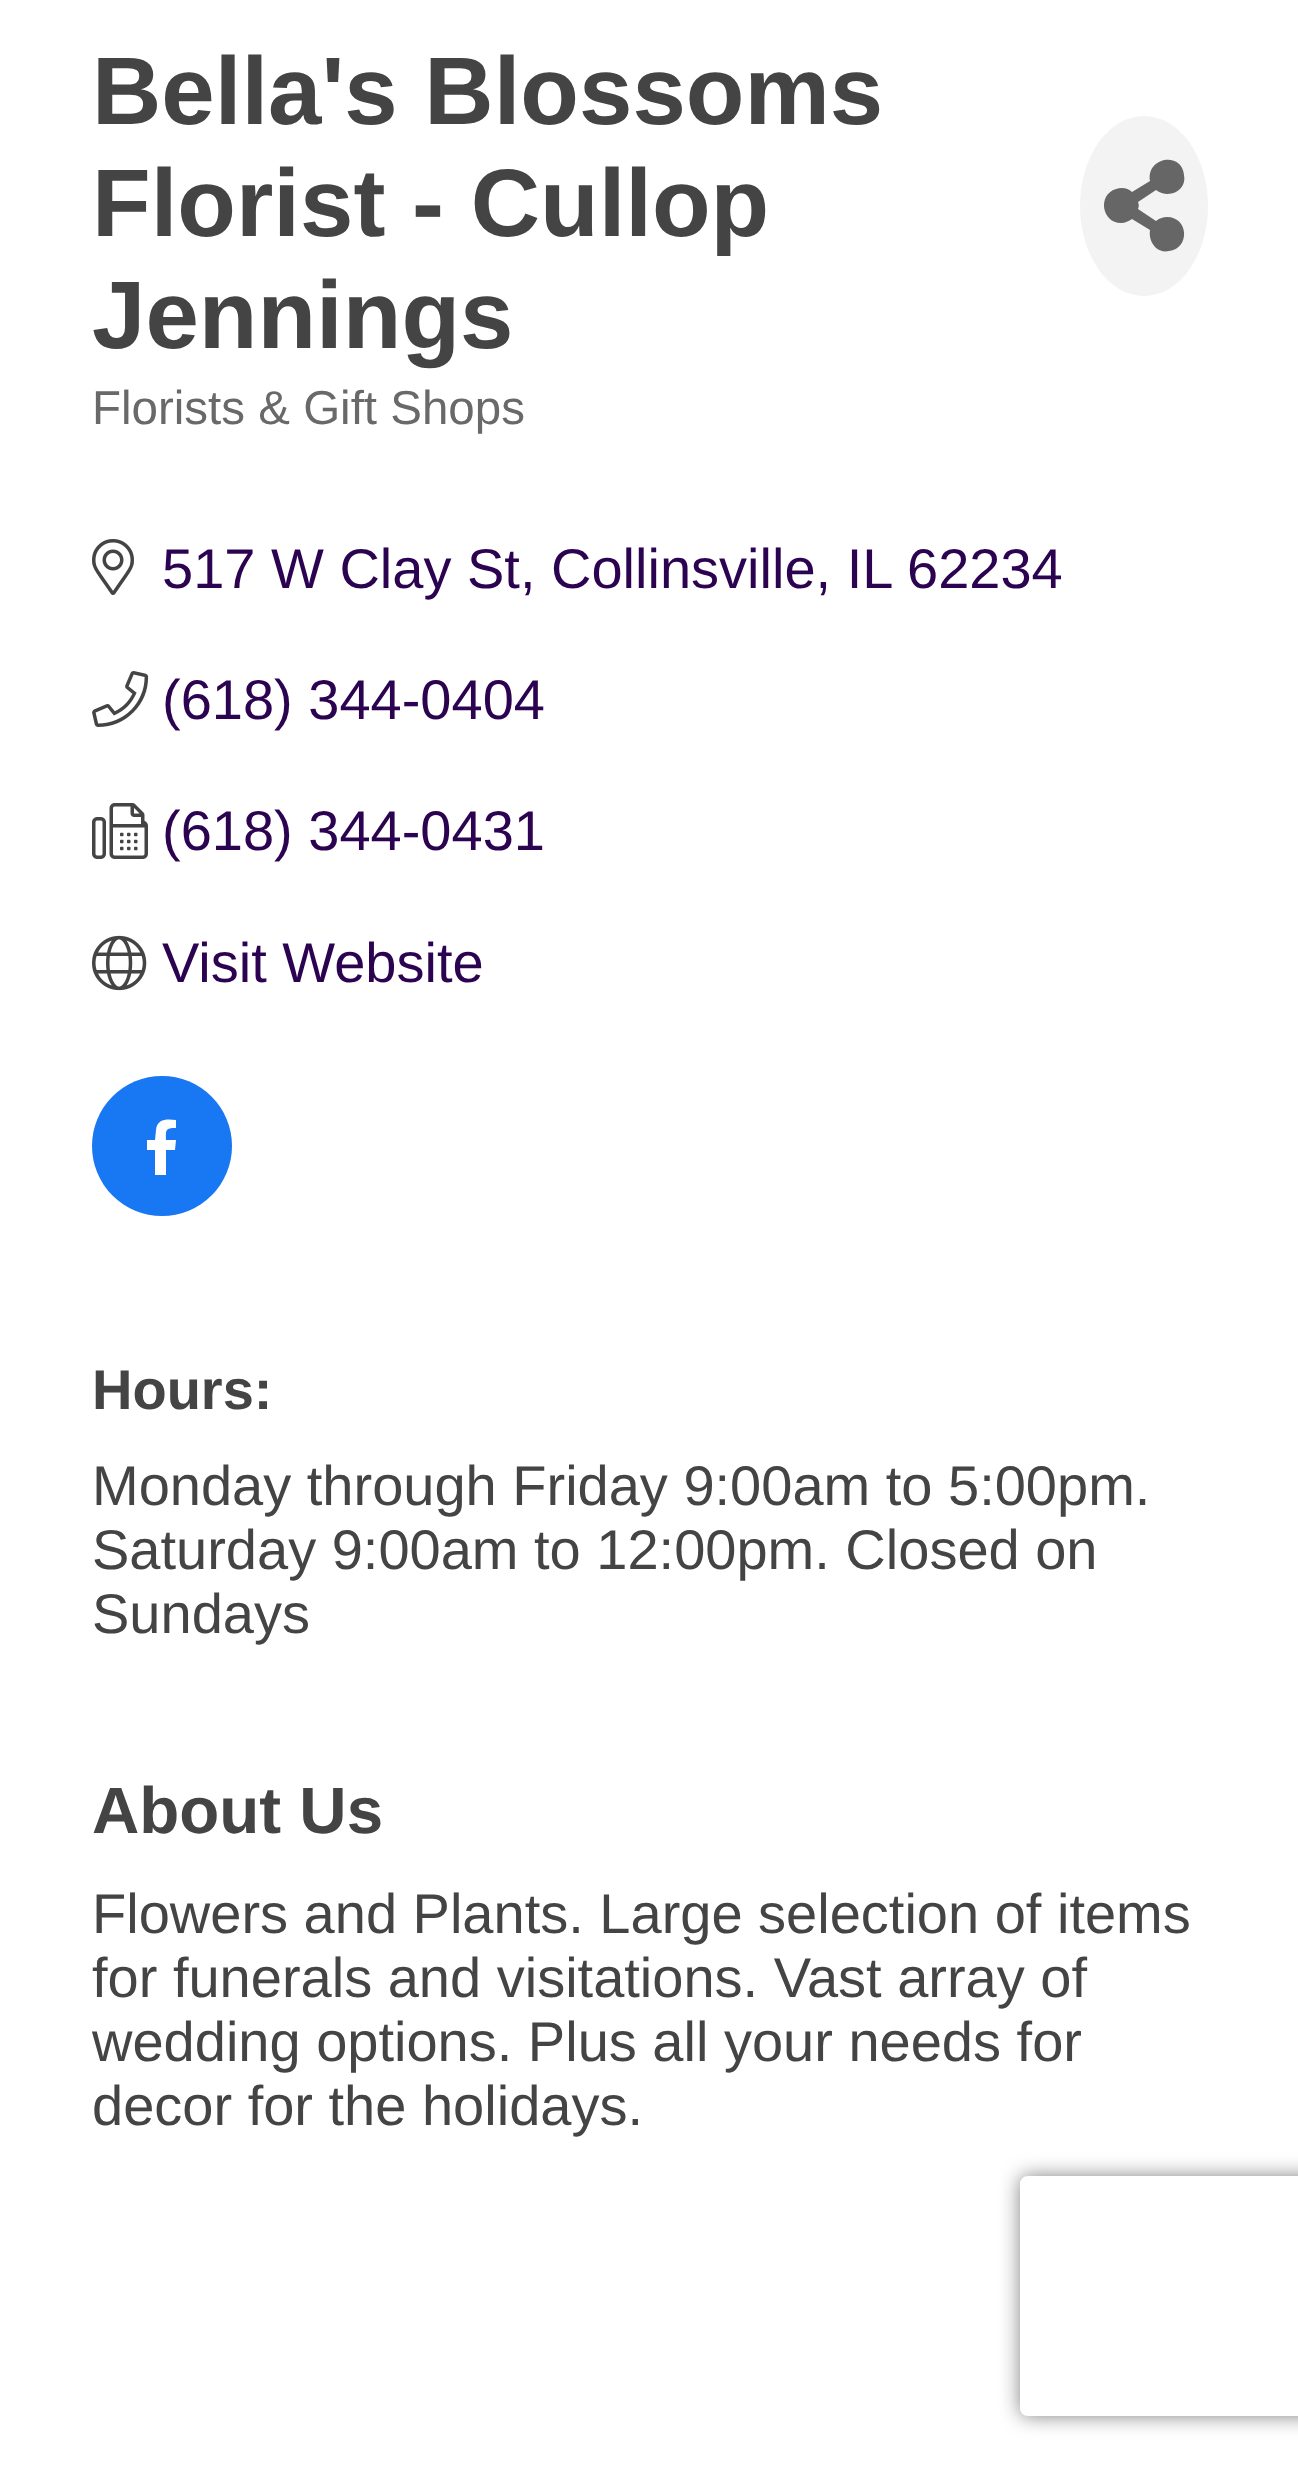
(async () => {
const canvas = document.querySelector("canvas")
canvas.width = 1298
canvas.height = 2469
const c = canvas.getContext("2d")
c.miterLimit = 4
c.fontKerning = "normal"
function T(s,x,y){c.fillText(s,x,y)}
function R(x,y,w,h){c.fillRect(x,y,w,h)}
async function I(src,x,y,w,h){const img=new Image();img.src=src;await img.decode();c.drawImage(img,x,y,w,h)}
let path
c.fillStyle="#fff"
R(0,0,1298,2469)
c.font="bold 96px Liberation Sans"
c.fillStyle="#444"
T("Bella's Blossoms",92,124)
T("Florist - Cullop",92,236)
T("Jennings",92,348)
c.fillStyle="#f3f3f3"
c.beginPath()
c.ellipse(1144,206,64,90,0,0,7)
c.fill()
c.fillStyle="#666"
path = new Path2D("M1167 217c22 0 23 32 2 34c-5 1-9 0-13-3c-5-5-7-11-6-18l-18-11c-3 2-7 4-11 4c-19 0-24-28-5-34c6-2 12-1 16 3l18-11c-4-24 32-30 34-6c1 5 0 9-3 13c-6 7-17 8-25 2l-18 12c1 2 1 5 0 7l18 12c4-3 7-4 11-4z")
c.fill(path)
c.font="47.5px Liberation Sans"
c.fillStyle="#696969"
T("Florists & Gift Shops",92,424)
await I("1.png",92,539,42,56)
c.font="56px Liberation Sans"
c.fillStyle="#2b0350"
T("517 W Clay St, Collinsville, IL",162,588)
T("62234",907,588)
await I("2.png",92,671,57,56)
T("(618) 344-0404",162,719)
await I("3.png",92,803,56,56)
T("(618) 344-0431",162,850)
await I("4.png",92,935,55,56)
T("Visit Website",162,982)
c.fillStyle="#1877f2"
c.beginPath()
c.arc(162,1146,70,0,7)
c.fill()
c.fillStyle="#fff"
path = new Path2D("M175 1150h-9v25h-11v-25h-8v-10h8l1-10c1-12 12-11 20-10v8c-11 0-10 2-10 12h10z")
c.fill(path)
c.font="bold 56px Liberation Sans"
c.fillStyle="#444"
T("Hours:",92,1409)
c.font="56px Liberation Sans"
T("Monday through Friday 9:00am to 5:00pm.",92,1505)
T("Saturday 9:00am to 12:00pm. Closed on",92,1569)
T("Sundays",92,1633)
c.font="bold 65.5px Liberation Sans"
T("About Us",92,1833)
c.font="56px Liberation Sans"
T("Flowers and Plants. Large selection of items",92,1933)
T("for funerals and visitations. Vast array of",92,1997)
T("wedding options. Plus all your needs for",92,2061)
T("decor for the holidays.",92,2125)
c.save()
path = new Path2D("M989 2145h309v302h-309zm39 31h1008c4.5 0 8 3.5 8 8v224c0 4.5-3.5 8-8 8h-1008c-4.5 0-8-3.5-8-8v-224c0-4.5 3.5-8 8-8z")
c.clip(path,"evenodd")
c.fillStyle="#808080"
c.filter="blur(10px)"
c.beginPath()
c.roundRect(1020,2176,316,240,8)
c.fill()
c.filter="none"
c.restore()
})()
